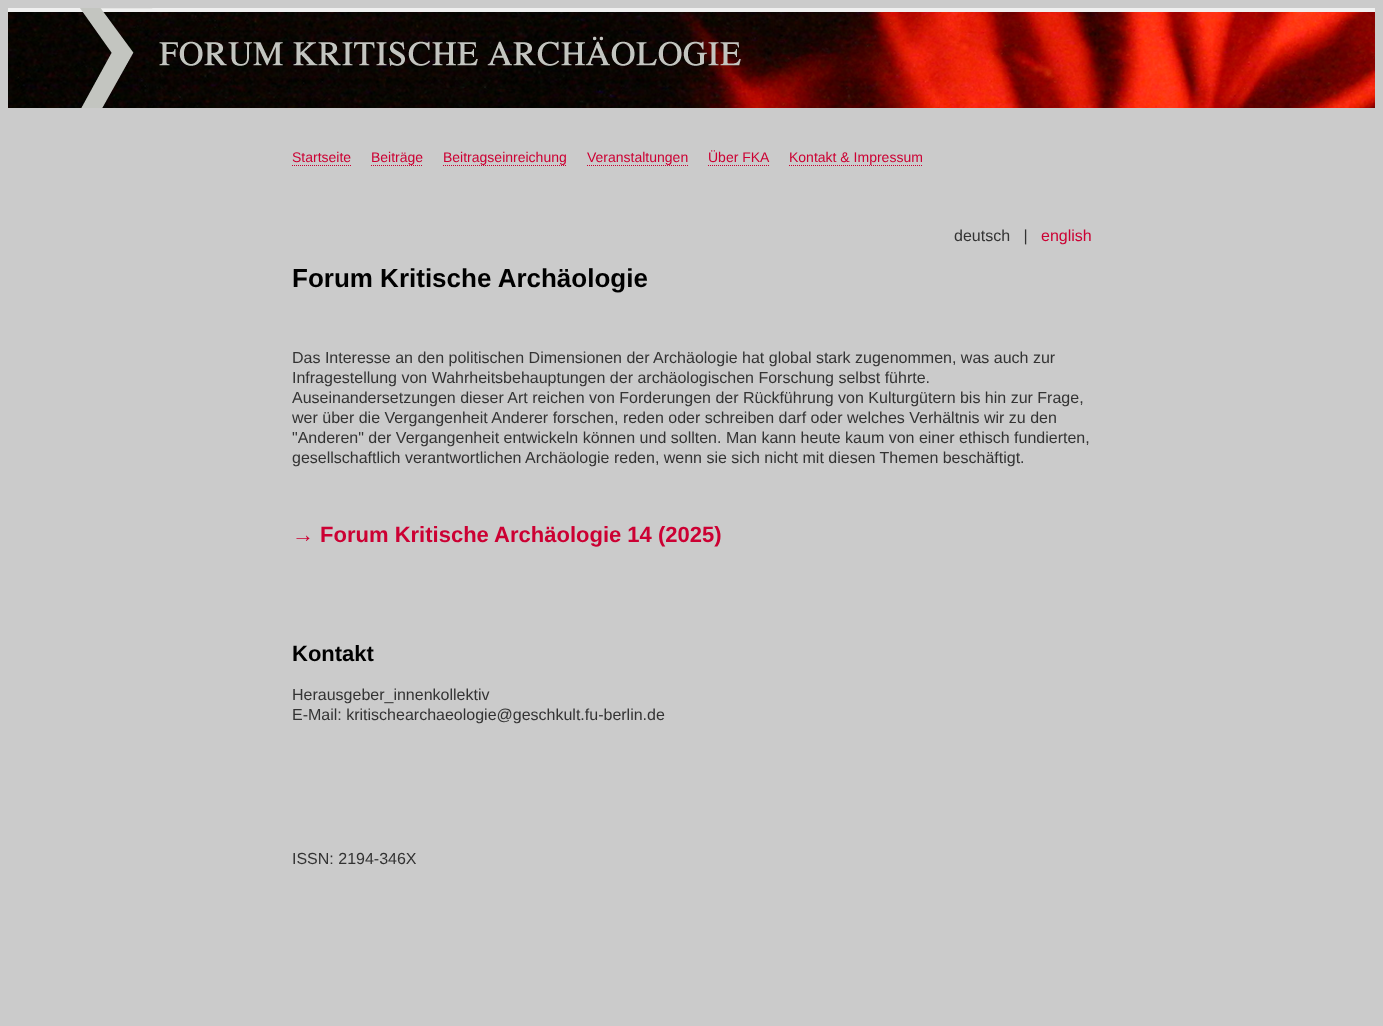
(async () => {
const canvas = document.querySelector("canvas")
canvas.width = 1383
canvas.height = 1026
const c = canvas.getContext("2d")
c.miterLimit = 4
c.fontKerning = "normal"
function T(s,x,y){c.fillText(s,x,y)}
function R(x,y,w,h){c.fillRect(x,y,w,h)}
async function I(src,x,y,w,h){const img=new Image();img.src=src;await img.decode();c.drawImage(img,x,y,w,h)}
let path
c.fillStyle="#cbcbcb"
R(0,0,1383,1026)
c.fillStyle="#f0f0f0"
R(8,8,1367,4)
await I("1.png",8,8,1367,100)
c.font="14px Liberation Sans"
c.fillStyle="#c03"
T("Startseite",292,162)
path = new Path2D("M292 165.5h59")
c.strokeStyle="#c03"
c.setLineDash([1,1])
c.stroke(path)
T("Beiträge",371,162)
path = new Path2D("M371 165.5h52")
c.stroke(path)
T("Beitragseinreichung",443,162)
path = new Path2D("M443 165.5h124")
c.stroke(path)
T("Veranstaltungen",587,162)
path = new Path2D("M587 165.5h101")
c.stroke(path)
T("Über FKA",708,162)
path = new Path2D("M708 165.5h61")
c.stroke(path)
T("Kontakt & Impressum",789,162)
path = new Path2D("M789 165.5h134")
c.stroke(path)
c.font="16px Liberation Sans"
c.fillStyle="#333"
T("deutsch   |",954,241)
c.fillStyle="#c03"
T("english",1041,241)
c.font="bold 26px Liberation Sans"
c.fillStyle="#000"
T("Forum Kritische Archäologie",292,287)
c.font="16px Liberation Sans"
c.fillStyle="#333"
T("Das Interesse an den politischen Dimensionen der Archäologie hat global stark zugenommen, was auch zur",292,363)
T("Infragestellung von Wahrheitsbehauptungen der archäologischen Forschung selbst führte.",292,383)
T("Auseinandersetzungen dieser Art reichen von Forderungen der Rückführung von Kulturgütern bis hin zur Frage,",292,403)
T("wer über die Vergangenheit Anderer forschen, reden oder schreiben darf oder welches Verhältnis wir zu den",292,423)
T("\"Anderen\" der Vergangenheit entwickeln können und sollten. Man kann heute kaum von einer ethisch fundierten,",292,443)
T("gesellschaftlich verantwortlichen Archäologie reden, wenn sie sich nicht mit diesen Themen beschäftigt.",292,463)
c.font="bold 22px Liberation Sans"
c.fillStyle="#c03"
T("→ Forum Kritische Archäologie 14 (2025)",292,542)
c.fillStyle="#000"
T("Kontakt",292,661)
c.font="16px Liberation Sans"
c.fillStyle="#333"
T("Herausgeber_innenkollektiv",292,700)
T("E-Mail: kritischearchaeologie@geschkult.fu-berlin.de",292,720)
T("ISSN: 2194-346X",292,864)
})()
